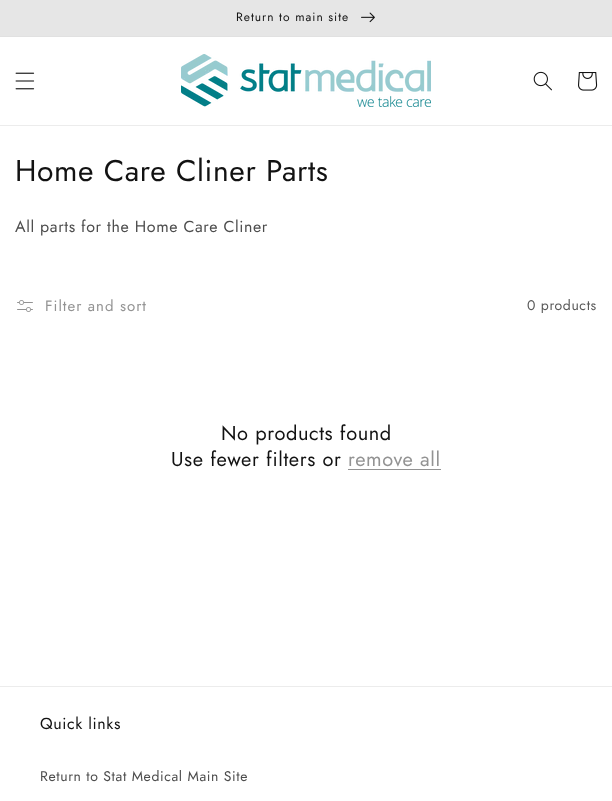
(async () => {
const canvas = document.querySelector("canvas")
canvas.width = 612
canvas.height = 801
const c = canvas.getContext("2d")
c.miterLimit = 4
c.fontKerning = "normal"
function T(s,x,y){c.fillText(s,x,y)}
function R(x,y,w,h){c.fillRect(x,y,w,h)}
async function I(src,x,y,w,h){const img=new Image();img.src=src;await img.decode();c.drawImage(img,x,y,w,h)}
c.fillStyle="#fff"
R(0,0,612,801)
c.fillStyle="#e1e1e1"
R(0,36,612,1)
c.fillStyle="#e6e6e6"
R(0,0,612,36)
c.letterSpacing="1px"
c.font="12px Jost"
c.fillStyle="#121212"
T("Return to main site",236,21)
await I("1.png",361,12,14,11)
c.fillStyle="#ececec"
R(0,125,612,1)
await I("2.png",15,72,20,18)
await I("3.png",181,54,250,53)
await I("4.png",533,71,19,20)
await I("5.png",578,72,20,19)
c.letterSpacing="0.6px"
c.font="30px Jost"
c.fillStyle="#121212"
T("Home Care Cliner Parts",15,181)
c.font="16px Jost"
c.fillStyle="#4d4d4d"
T("All parts for the Home Care Cliner",15,232)
await I("6.png",17,300,16,12)
c.letterSpacing="1px"
c.font="15px Jost"
c.fillStyle="#939393"
T("Filter and sort",45,311)
c.letterSpacing="0.6px"
c.font="14px Jost"
c.fillStyle="#595959"
T("0 products",527,310)
c.font="20px Jost"
c.fillStyle="#121212"
T("No products found",221,440)
T("Use fewer filters or",171,466)
c.fillStyle="#939393"
T("remove all",348,466)
R(348,469,93,1)
c.fillStyle="#ececec"
R(0,686,612,1)
c.font="16px Jost"
c.fillStyle="#121212"
T("Quick links",40,729)
c.font="14px Jost"
c.fillStyle="#4d4d4d"
T("Return to Stat Medical Main Site",40,781)
})()
